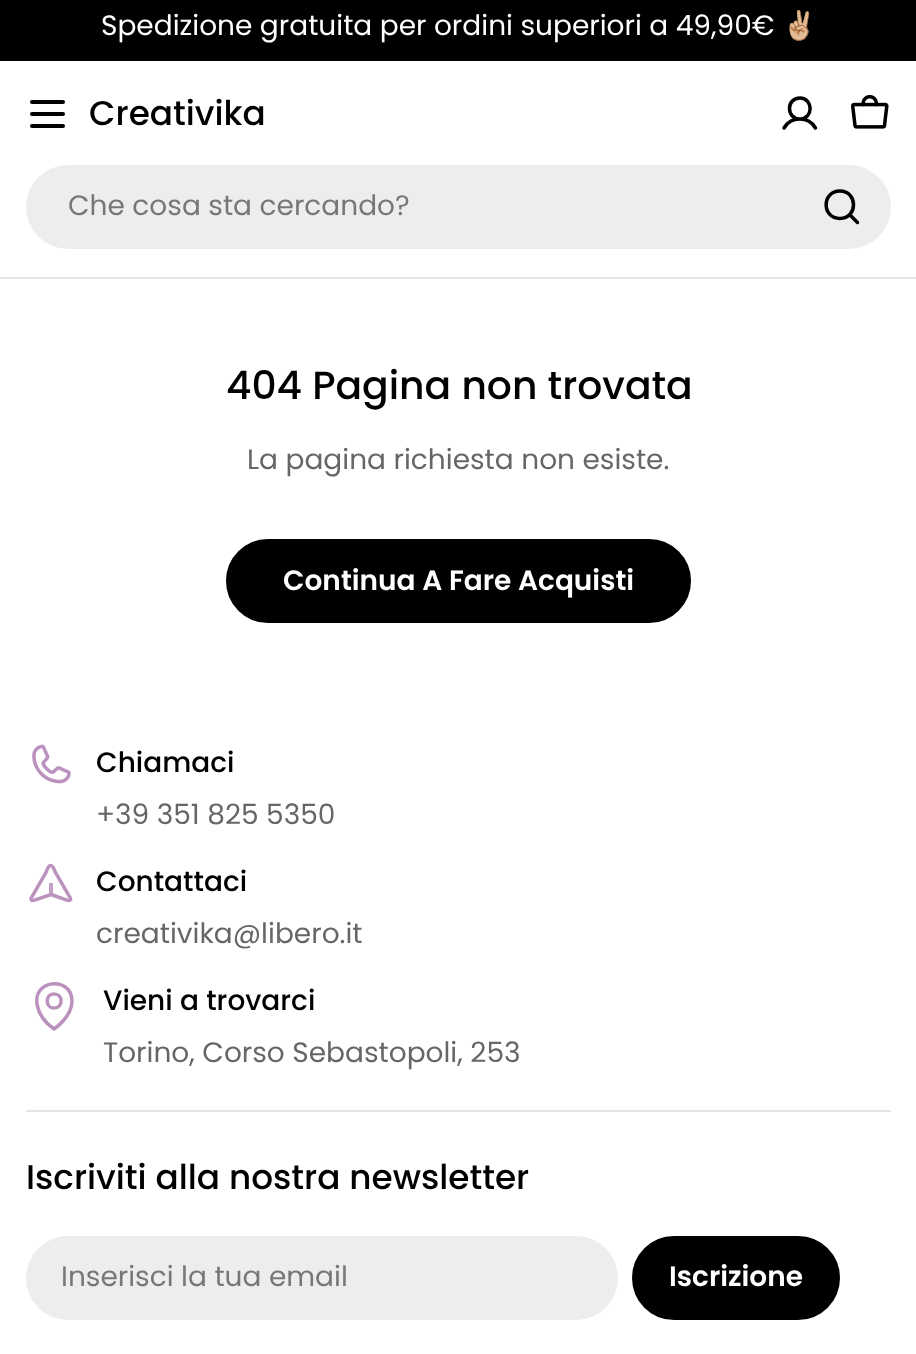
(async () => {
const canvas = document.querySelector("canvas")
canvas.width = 916
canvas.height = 1354
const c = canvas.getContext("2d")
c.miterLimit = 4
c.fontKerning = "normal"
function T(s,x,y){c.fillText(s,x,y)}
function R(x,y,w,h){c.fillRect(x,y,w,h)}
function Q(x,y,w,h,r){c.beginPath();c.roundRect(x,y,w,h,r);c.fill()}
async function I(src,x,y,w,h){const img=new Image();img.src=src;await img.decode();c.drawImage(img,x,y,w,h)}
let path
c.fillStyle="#fff"
R(0,0,916,1354)
c.fillStyle="#000"
R(0,0,916,61)
c.font="28px Poppins"
c.fillStyle="#fff"
T("Spedizione gratuita per ordini superiori a 49,90€",101,35)
c.font="28px Noto Color Emoji"
T("✌🏼",782,35)
c.fillStyle="#e5e5e5"
R(0,277,916,2)
c.fillStyle="#000"
Q(30,112,35,4,2)
Q(30,100,35,4,2)
Q(30,124,35,4,2)
c.font="500 34.25px Poppins"
T("Creativika",89,125)
path = new Path2D("M800 119c13.5 0 13.5-21 0-21c-14 0-14 21 0 21zm-16 9c7-12 24.5-12 31.5 0")
c.strokeStyle="#000"
c.lineWidth=3.5
c.lineCap="round"
c.lineJoin="round"
c.stroke(path)
await I("1.png",851,94,38,35)
c.fillStyle="#ededed"
Q(26,165,865,84,42)
c.font="28px Poppins"
c.fillStyle="#777"
T("Che cosa sta cercando?",68,215)
path = new Path2D("M840 218.5c18 0 18-27.5 0-27.5c-18.5 0-18.5 27.5 0 27.5zm9.5-4l8 8")
c.stroke(path)
c.font="500 39.25px Poppins"
c.fillStyle="#000"
T("404 Pagina non trovata",226,399)
c.font="28px Poppins"
c.fillStyle="#666"
T("La pagina richiesta non esiste.",247,469)
c.fillStyle="#000"
c.beginPath()
c.roundRect(227,540,463,82,41)
c.fill()
c.lineWidth=2
c.lineJoin="miter"
c.stroke()
c.font="600 28px Poppins"
c.fillStyle="#fff"
T("Continua A Fare Acquisti",283,590)
await I("2.png",32,744,39,40)
c.font="500 28px Poppins"
c.fillStyle="#000"
T("Chiamaci",96,772)
c.font="28px Poppins"
c.fillStyle="#666"
T("+39 351 825 5350",96,824)
c.fillStyle="#c4a0c6"
R(49,883,4,12)
path = new Path2D("M51 894.5l14.5 5c1 .5 3.5 2 4.5 .5l.5-.5v-1l-15.5-27c0-.5-2-6-4.5-6c-2 0-4 5.5-4 6l-15.5 27v1l.5 .5c1 1.5 3.5 0 4.5-.5z")
c.strokeStyle="#bb92be"
c.lineWidth=3.5
c.lineCap="butt"
c.stroke(path)
c.font="500 28px Poppins"
c.fillStyle="#000"
T("Contattaci",96,891)
c.font="28px Poppins"
c.fillStyle="#666"
T("creativika@libero.it",96,943)
path = new Path2D("M54 1008c9.5 0 9.5-14 0-14c-9 0-9 14 0 14zm18-7c0 16-18 28-18 28c-7-5-14.5-13.5-16.5-22.5c-7-27.5 34.5-31 34.5-5.5z")
c.lineCap="round"
c.lineJoin="round"
c.stroke(path)
c.font="500 28px Poppins"
c.fillStyle="#000"
T("Vieni a trovarci",103,1010)
c.font="28px Poppins"
c.fillStyle="#666"
T("Torino, Corso Sebastopoli, 253",103,1062)
c.fillStyle="#e5e5e5"
R(26,1110,865,2)
c.font="500 34.25px Poppins"
c.fillStyle="#000"
T("Iscriviti alla nostra newsletter",26,1189)
c.fillStyle="#ededed"
Q(26,1236,592,84,42)
c.font="28px Poppins"
c.fillStyle="#777"
T("Inserisci la tua email",61,1286)
c.fillStyle="#000"
c.beginPath()
c.roundRect(633,1237,206,82,41)
c.fill()
c.strokeStyle="#000"
c.lineWidth=2
c.lineJoin="miter"
c.stroke()
c.font="600 28px Poppins"
c.fillStyle="#fff"
T("Iscrizione",669,1286)
})()
